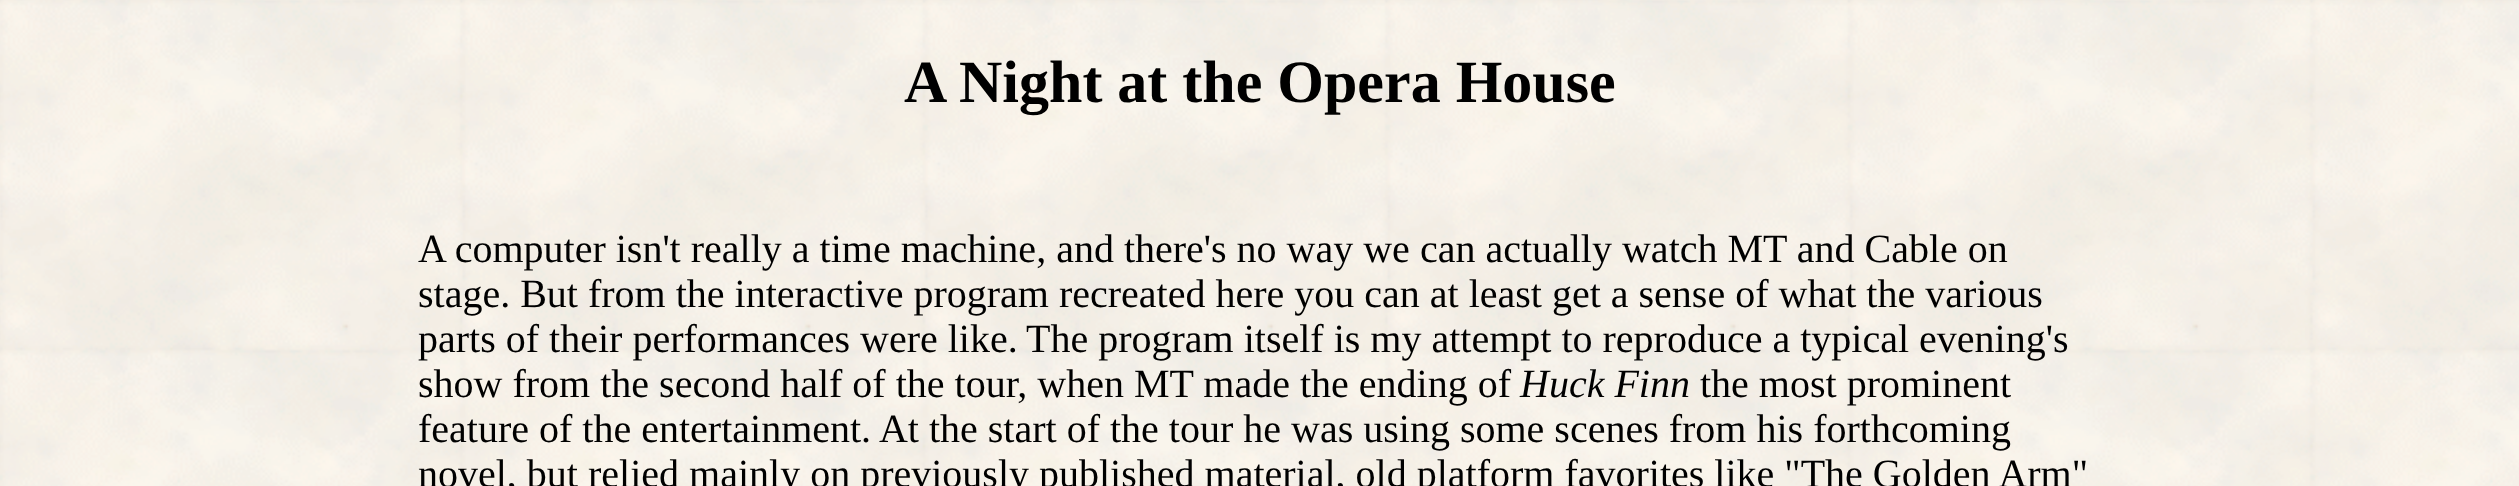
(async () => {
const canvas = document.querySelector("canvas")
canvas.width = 2519
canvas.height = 486
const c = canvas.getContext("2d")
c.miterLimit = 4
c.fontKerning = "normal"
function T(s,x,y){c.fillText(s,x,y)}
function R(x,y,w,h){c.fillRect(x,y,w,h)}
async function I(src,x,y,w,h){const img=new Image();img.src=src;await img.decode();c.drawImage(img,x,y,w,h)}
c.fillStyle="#fff"
R(0,0,2519,486)
await I("1.png",0,0,2519,486)
c.font="bold 60px Liberation Serif"
c.fillStyle="#000"
T("A Night at the Opera House",904,102)
c.font="40px Liberation Serif"
T("A computer isn't really a time machine, and there's no way we can actually watch MT and Cable on",418,262)
T("stage. But from the interactive program recreated here you can at least get a sense of what the various",418,307)
T("parts of their performances were like.",418,352)
T("The program itself is my attempt to reproduce a typical evening's",1026,352)
T("show from the second half of the tour, when MT made the ending of",418,397)
c.font="italic 40px Liberation Serif"
T("Huck Finn",1520,397)
c.font="40px Liberation Serif"
T("the most prominent",1700,397)
T("feature of the entertainment. At the start of the tour he was using some scenes from his forthcoming",418,442)
T("novel, but relied mainly on previously published material, old platform favorites like \"The Golden Arm\"",418,487)
})()
